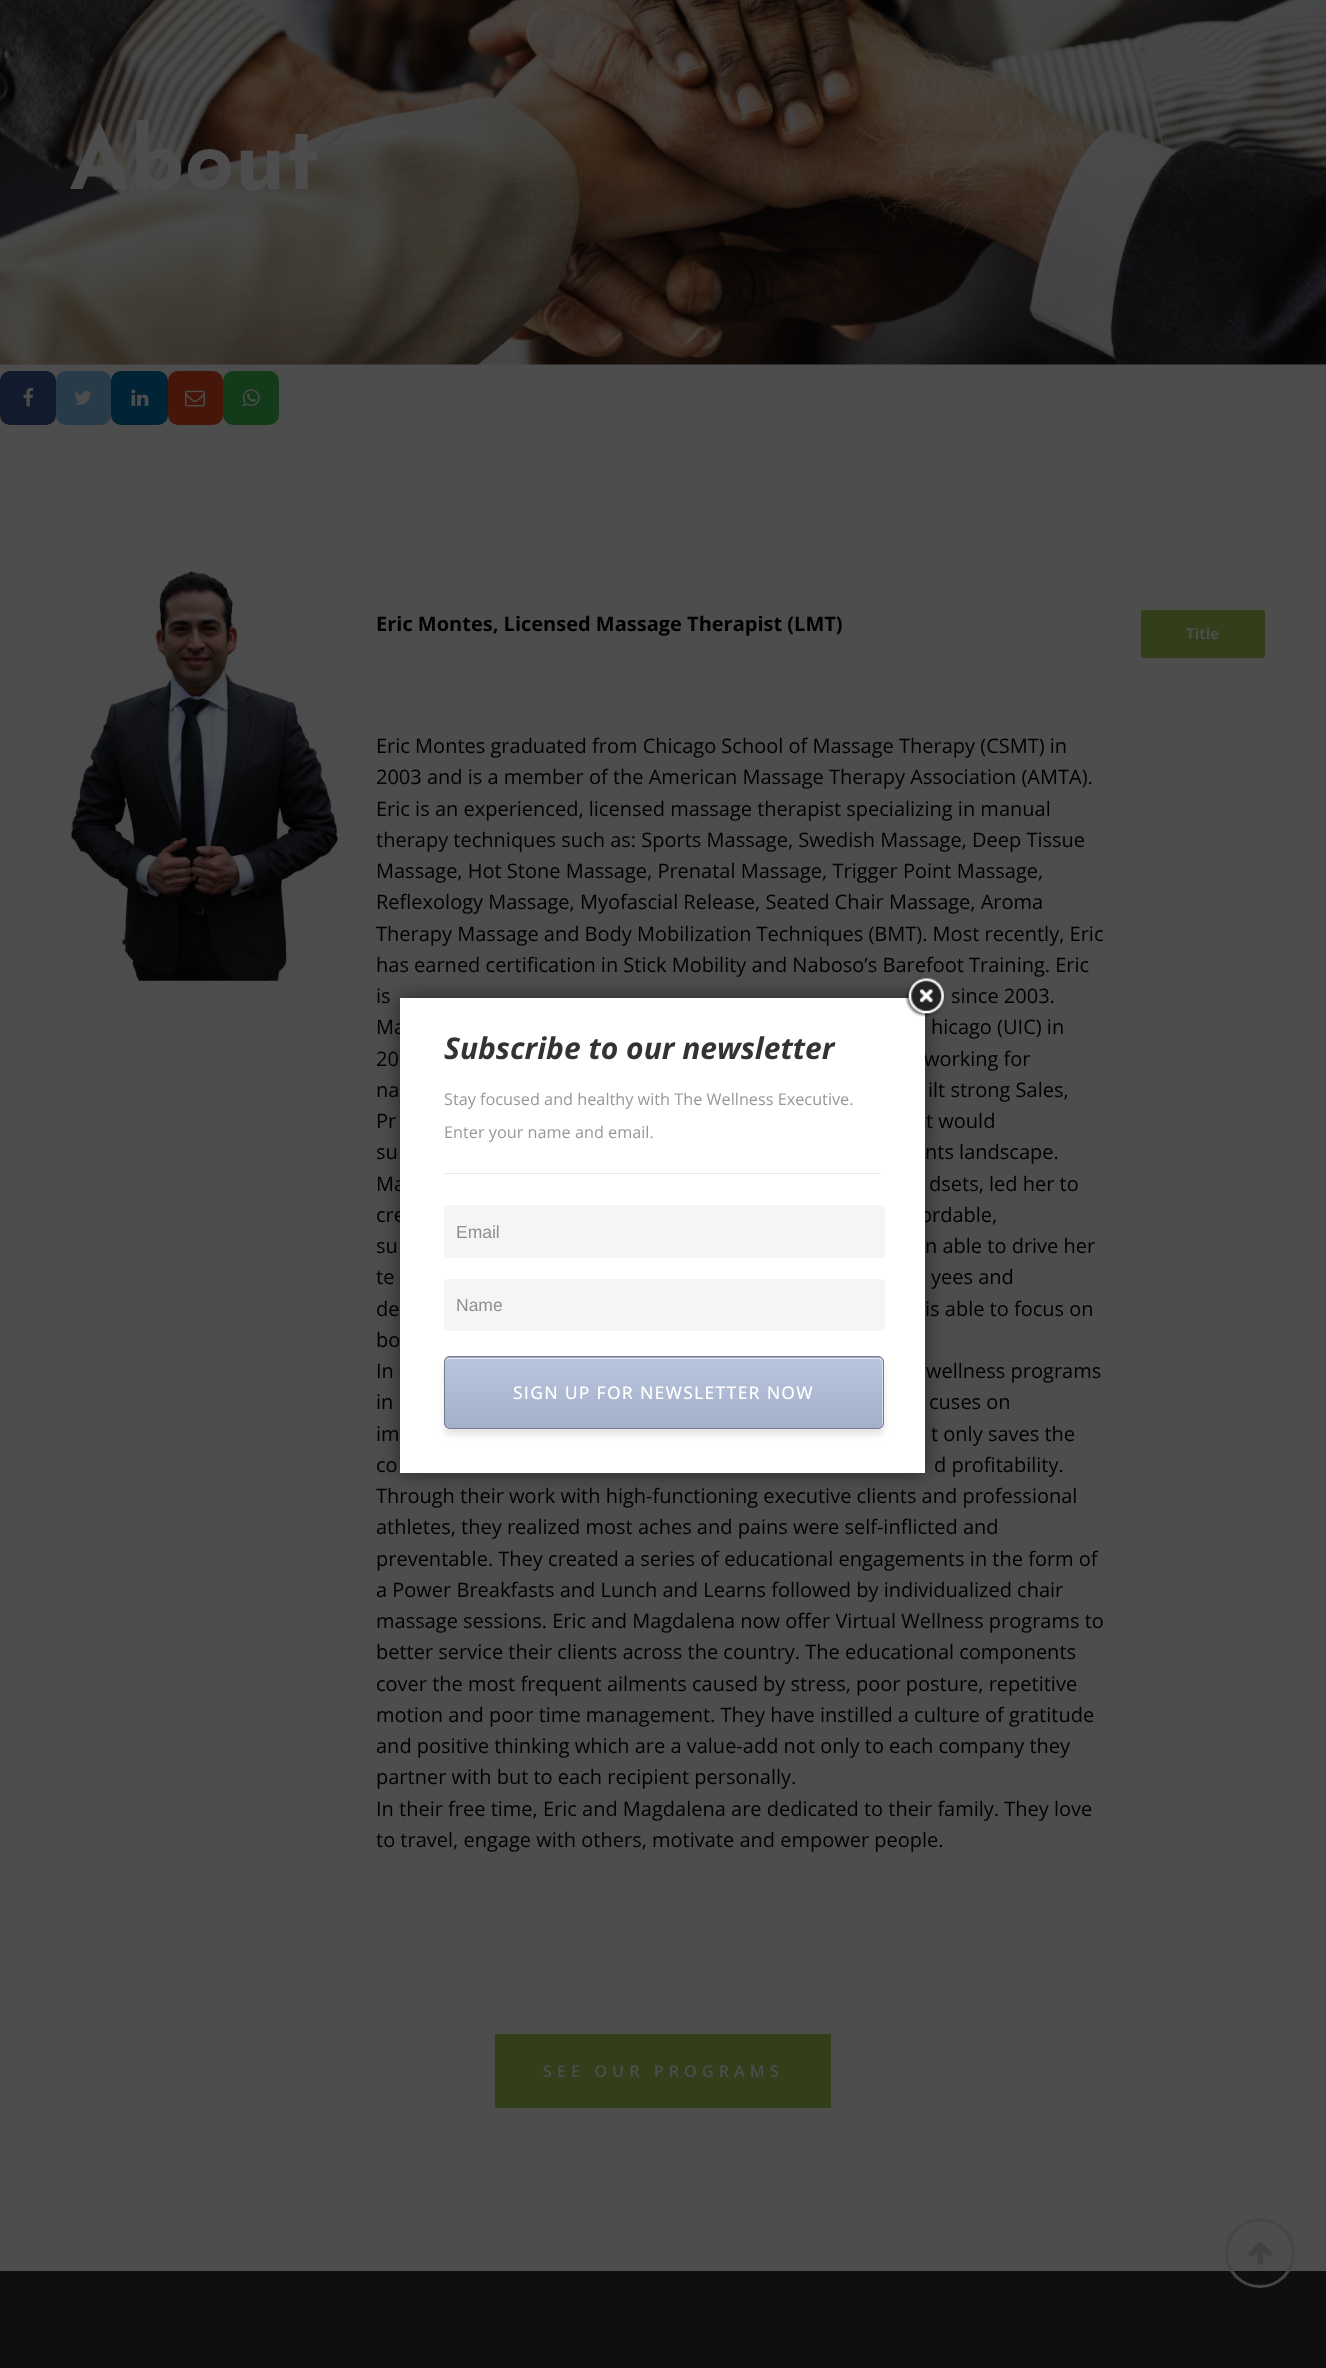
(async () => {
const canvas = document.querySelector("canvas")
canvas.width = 1326
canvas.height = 2368
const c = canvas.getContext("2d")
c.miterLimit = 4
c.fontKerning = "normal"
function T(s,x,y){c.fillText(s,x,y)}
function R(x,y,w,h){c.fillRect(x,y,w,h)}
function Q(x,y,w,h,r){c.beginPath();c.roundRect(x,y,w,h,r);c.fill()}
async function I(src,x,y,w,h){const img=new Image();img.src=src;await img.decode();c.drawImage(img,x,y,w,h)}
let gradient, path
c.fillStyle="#4d4d4d"
R(0,0,1326,2368)
await I("1.png",0,0,1326,365)
c.font="bold 87.5px Josefin Sans"
T("About",69,189)
c.fillStyle="#121b2e"
Q(0,371,56,54,10)
await I("2.png",23,387,11,20)
c.fillStyle="#273b49"
Q(56,371,55,54,10)
await I("3.png",74,390,18,15)
c.fillStyle="#002436"
Q(111,371,57,54,10)
await I("4.png",131,389,18,17)
c.fillStyle="#47160b"
Q(168,371,55,54,10)
await I("5.png",185,390,20,17)
c.fillStyle="#143b19"
Q(223,371,56,54,10)
await I("6.png",242,389,18,18)
await I("7.png",70,571,268,410)
c.font="bold 20px Open Sans"
c.fillStyle="#000"
T("Eric Montes, Licensed Massage Therapist (LMT)",376,631)
c.font="20px Open Sans"
T("Eric Montes graduated from Chicago School of Massage Therapy (CSMT) in",376,753)
T("2003 and is a member of the American Massage Therapy Association (AMTA).",376,784)
T("Eric is an experienced, licensed massage therapist specializing in manual",376,816)
T("therapy techniques such as: Sports Massage, Swedish Massage, Deep Tissue",376,847)
T("Massage, Hot Stone Massage, Prenatal Massage, Trigger Point Massage,",376,878)
T("Reflexology Massage, Myofascial Release, Seated Chair Massage, Aroma",376,909)
T("Therapy Massage and Body Mobilization Techniques (BMT). Most recently, Eric",376,941)
T("has earned certification in Stick Mobility and Naboso’s Barefoot Training. Eric",376,972)
T("is",376,1003)
T("since 2003.",951,1003)
T("Ma",376,1034)
T("hicago (UIC) in",931,1034)
T("20",376,1066)
T("working for",924,1066)
T("na",376,1097)
T("ilt strong Sales,",928,1097)
T("Pr",376,1128)
T("t would",926,1128)
T("su",376,1159)
T("nts landscape.",925,1159)
T("Ma",376,1191)
T("dsets, led her to",929,1191)
T("cre",376,1222)
T("ordable,",920,1222)
T("su",376,1253)
T("n able to drive her",925,1253)
T("te",376,1284)
T("yees and",931,1284)
T("de",376,1316)
T("is able to focus on",925,1316)
T("bo",376,1347)
T("In",376,1378)
T("wellness programs",926,1378)
T("in",376,1409)
T("cuses on",929,1409)
T("im",376,1441)
T("t only saves the",931,1441)
T("co",376,1472)
T("d profitability.",934,1472)
T("Through their work with high-functioning executive clients and professional",376,1503)
T("athletes, they realized most aches and pains were self-inflicted and",376,1534)
T("preventable. They created a series of educational engagements in the form of",376,1566)
T("a Power Breakfasts and Lunch and Learns followed by individualized chair",376,1597)
T("massage sessions. Eric and Magdalena now offer Virtual Wellness programs to",376,1628)
T("better service their clients across the country. The educational components",376,1659)
T("cover the most frequent ailments caused by stress, poor posture, repetitive",376,1691)
T("motion and poor time management. They have instilled a culture of gratitude",376,1722)
T("and positive thinking which are a value-add not only to each company they",376,1753)
T("partner with but to each recipient personally.",376,1784)
T("In their free time, Eric and Magdalena are dedicated to their family. They love",376,1816)
T("to travel, engage with others, motivate and empower people.",376,1847)
c.fillStyle="#333f1a"
Q(1141,610,124,48,2.5)
c.font="bold 15px Open Sans"
c.fillStyle="#4d4d4d"
T("Title",1186,639)
c.fillStyle="#333f1a"
R(495,2034,336,74)
c.letterSpacing="5px"
c.font="600 16.25px Open Sans"
c.fillStyle="#4d4d4d"
T("SEE OUR PROGRAMS",543,2077)
c.fillStyle="#0f0f0f"
R(0,2271,1326,97)
c.beginPath()
c.arc(1260,2253,33.5,0,7)
c.strokeStyle="#464646"
c.lineWidth=3
c.stroke()
await I("8.png",1248,2242,25,23)
c.fillStyle="#00000080"
c.filter="blur(9.5px)"
c.beginPath()
c.rect(400,998,525,475)
c.fill()
c.filter="none"
c.fillStyle="#fff"
R(400,998,525,475)
await I("9.png",905,978,40,39)
c.letterSpacing="0px"
c.font="italic bold 30px Open Sans"
c.fillStyle="#333"
T("Subscribe to our newsletter",444,1059)
c.font="16.25px Open Sans"
c.fillStyle="#989898"
T("Stay focused and healthy with The Wellness Executive.",444,1105)
T("Enter your name and email.",444,1138)
c.fillStyle="#e8e8e8"
R(444,1173,437,1)
c.fillStyle="#f5f5f5"
Q(444,1205,441,53,4)
c.font="17.5px Liberation Sans"
c.fillStyle="#8f8f8f"
T("Email",456,1238)
c.fillStyle="#f5f5f5"
Q(444,1279,441,52,4)
c.fillStyle="#8f8f8f"
T("Name",456,1311)
c.fillStyle="#0000001a"
c.filter="blur(3px)"
c.beginPath()
c.roundRect(444,1363,440,72,6)
c.fill()
c.filter="none"
c.save()
c.beginPath()
c.roundRect(444,1356,440,73,6)
c.clip()
gradient = c.createLinearGradient(445,1288,445,1358)
gradient.addColorStop(0,"#b9c5dd")
gradient.addColorStop(1,"#a4b0cb")
c.fillStyle = gradient
R(444,1356,440,2)
gradient = c.createLinearGradient(445,1358,445,1428)
gradient.addColorStop(0,"#b9c5dd")
gradient.addColorStop(1,"#a4b0cb")
c.fillStyle = gradient
R(444,1358,440,70)
c.restore()
c.fillStyle="#ffffff80"
path = new Path2D("M450 1359h428c2 0 4 2 4 5v60l-1 3c1-1 2-3 2-4v-60c0-3-2-5-5-5h-428c-3 0-5 2-5 5v1c0-3 2-5 5-5z")
c.fill(path)
c.beginPath()
c.roundRect(444.5,1356.5,439,72,5.5)
c.strokeStyle="#737b8d"
c.lineWidth=1
c.stroke()
c.letterSpacing="1.25px"
c.font="500 17.5px Open Sans"
c.fillStyle="#fff"
T("SIGN UP FOR NEWSLETTER NOW",513,1399)
})()
